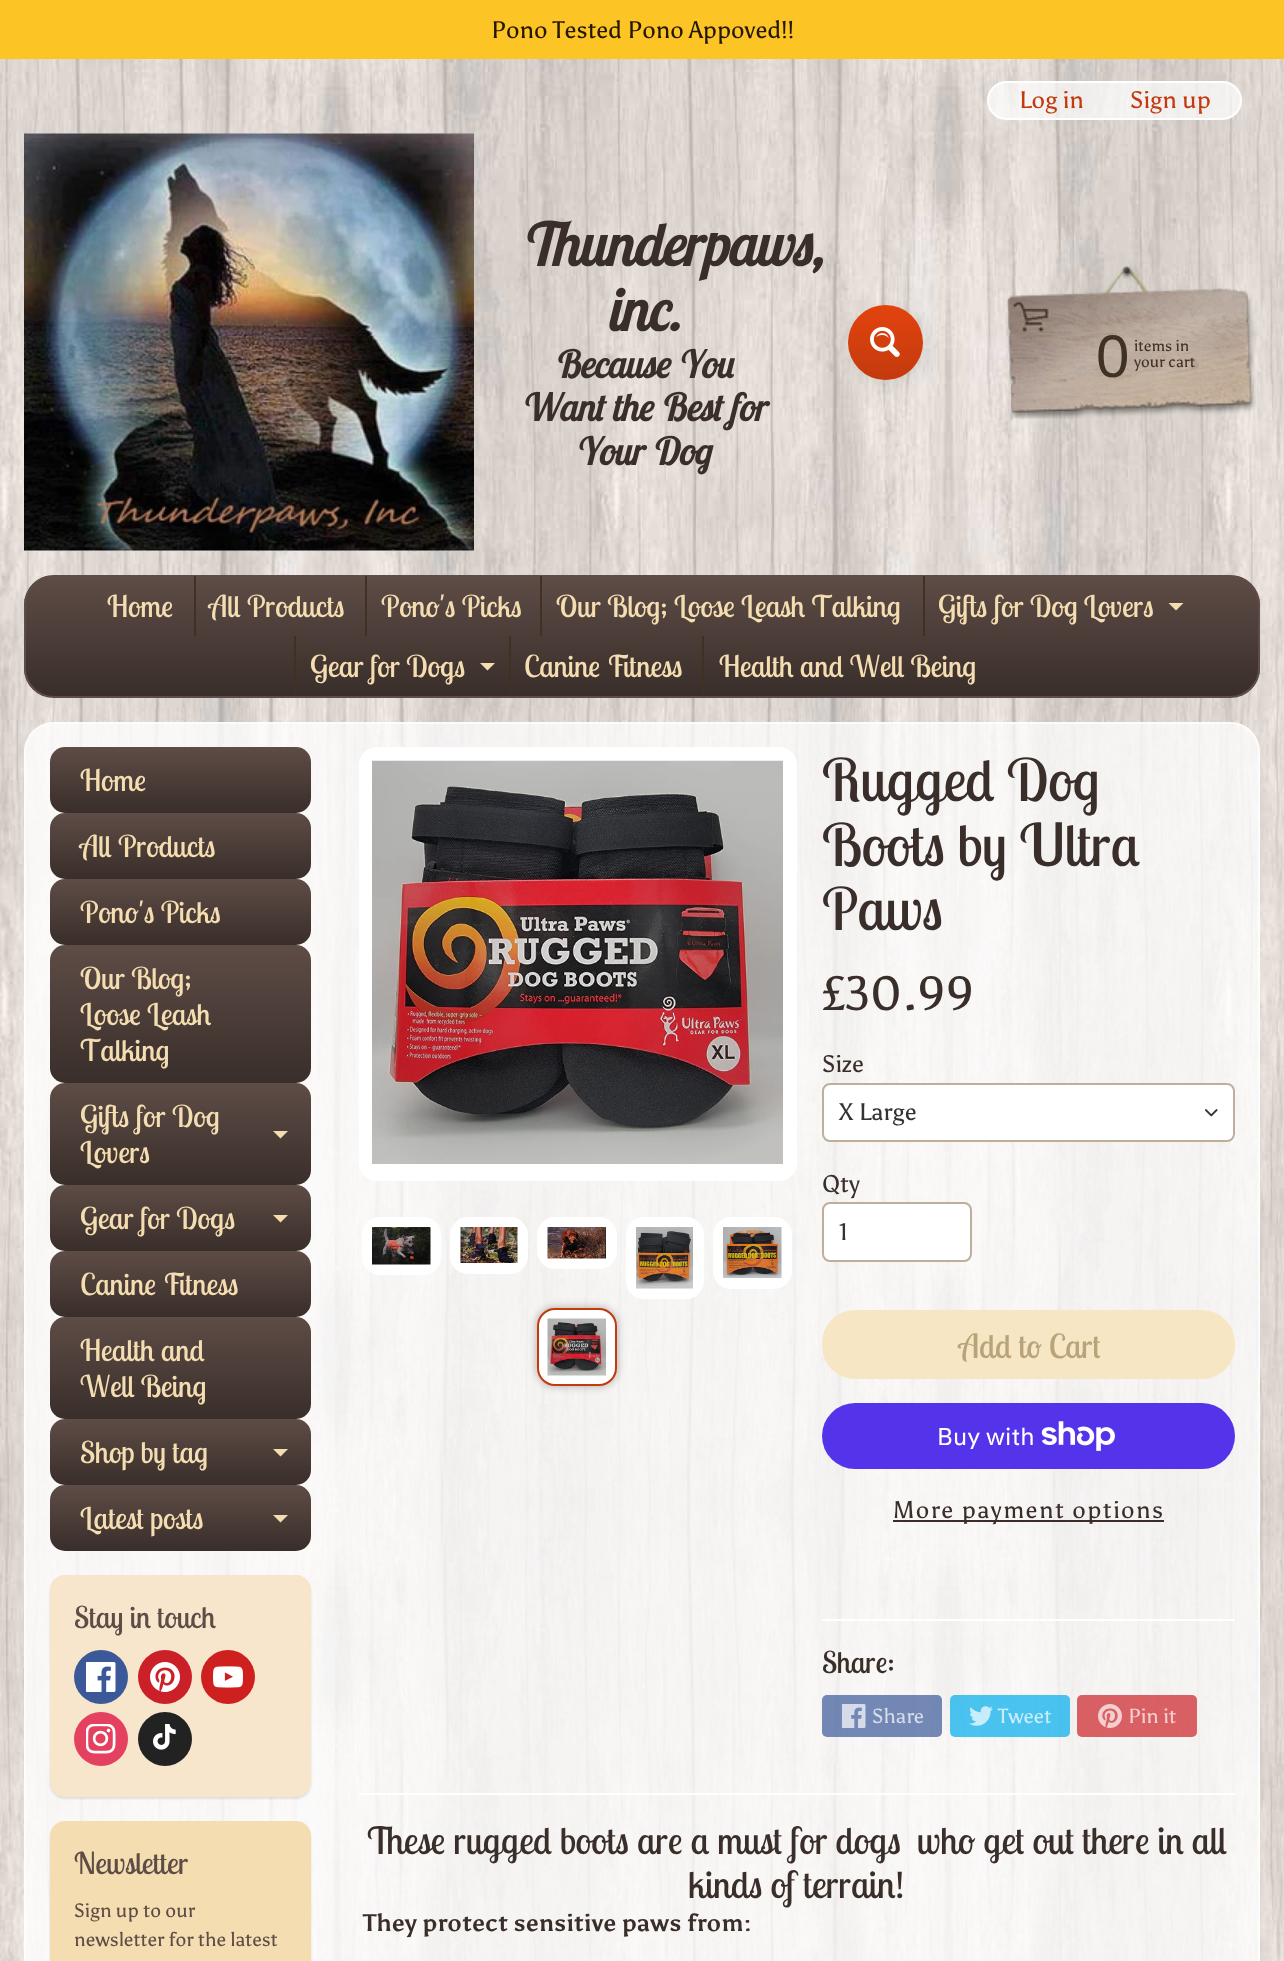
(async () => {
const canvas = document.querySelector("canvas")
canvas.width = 1284
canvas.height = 1961
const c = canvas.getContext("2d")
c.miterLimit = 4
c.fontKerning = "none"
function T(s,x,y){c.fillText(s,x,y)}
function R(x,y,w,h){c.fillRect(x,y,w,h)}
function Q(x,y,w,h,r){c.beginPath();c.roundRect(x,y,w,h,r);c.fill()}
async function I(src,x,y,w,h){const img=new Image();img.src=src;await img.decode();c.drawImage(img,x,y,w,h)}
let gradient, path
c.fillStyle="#fff"
R(0,0,1284,1961)
await I("1.png",0,59,1284,1902)
c.fillStyle="#fdc425"
R(0,0,1284,59)
c.font="24px Asul"
c.fillStyle="#251800"
T("Pono Tested Pono Appoved!!",491,38)
await I("2.png",24,133,450,418)
c.font="italic bold 58.5px Lobster Two"
c.fillStyle="#392e2a"
T("Thunderpaws,",519,266)
T("inc.",605,331)
c.font="italic bold 37.5px Lobster Two"
T("Because You",553,378)
T("Want the Best for",520,421)
T("Your Dog",574,465)
c.fillStyle="#ffffffb3"
c.beginPath()
c.roundRect(988,82,253,37,18.5)
c.fill()
c.strokeStyle="#fff"
c.lineWidth=2
c.stroke()
c.font="24px Asul"
c.fillStyle="#c33a0e"
T("Log in",1019,108)
T("Sign up",1130,108)
c.fillStyle="#0000001a"
c.filter="blur(9px)"
c.beginPath()
c.roundRect(852,309,75,75,37.5)
c.fill()
c.filter="none"
gradient = c.createLinearGradient(885,305,885,380)
gradient.addColorStop(0,"#e3430d")
gradient.addColorStop(1,"#c33a0e")
c.fillStyle = gradient
c.beginPath()
c.arc(885.5,342.5,37.5,0,7)
c.fill()
await I("3.png",870,327,30,30)
await I("4.png",1005,265,251,154)
c.font="60px Liberation Sans"
c.fillStyle="#403125"
T("0",1096,377)
c.font="15.5px Asul"
T("items in",1134,351)
T("your cart",1134,367)
c.save()
c.beginPath()
c.roundRect(24,575,1236,123,30)
c.clip()
gradient = c.createLinearGradient(642,576,642,696)
gradient.addColorStop(0,"#5e4c46")
gradient.addColorStop(1,"#392e2a")
c.fillStyle = gradient
R(24,576,1236,120)
c.restore()
c.beginPath()
c.roundRect(25,576,1234,121,29)
c.strokeStyle="#5e4c46"
c.stroke()
c.font="30px Lobster Two"
c.fillStyle="#f4ddb1"
T("Home",107,617)
c.fillStyle="#413124"
R(194,576,2,60)
c.fillStyle="#f4ddb1"
T("All Products",209,617)
c.fillStyle="#413124"
R(365,576,2,60)
c.fillStyle="#f4ddb1"
T("Pono's Picks",381,617)
c.fillStyle="#413124"
R(540,576,2,60)
c.fillStyle="#f4ddb1"
T("Our Blog; Loose Leash Talking",556,617)
c.fillStyle="#413124"
R(923,576,2,60)
c.fillStyle="#f4ddb1"
T("Gifts for Dog Lovers",938,617)
path = new Path2D("M1168.5 603h15l-7.5 7.5z")
c.fill(path)
c.fillStyle="#413124"
R(294,636,2,60)
c.fillStyle="#f4ddb1"
T("Gear for Dogs",310,677)
path = new Path2D("M480 663h15l-7.5 7.5z")
c.fill(path)
c.fillStyle="#413124"
R(509,636,2,60)
c.fillStyle="#f4ddb1"
T("Canine Fitness",524,677)
c.fillStyle="#413124"
R(702,636,2,60)
c.fillStyle="#f4ddb1"
T("Health and Well Being",719,677)
c.fillStyle="#ffffffbf"
Q(24,722,1236,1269,30)
c.beginPath()
c.roundRect(25,723,1234,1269,29)
c.strokeStyle="#ffffffb3"
c.stroke()
c.fillStyle="#ffffff40"
path = new Path2D("M55 723h280v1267h-280c-16 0-29-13-29-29v-1209c0-16 13-29 29-29z")
c.fill(path)
gradient = c.createLinearGradient(180,747,180,813)
gradient.addColorStop(0,"#5e4c46")
gradient.addColorStop(1,"#392e2a")
c.fillStyle = gradient
Q(50,747,261,66,15)
c.fillStyle="#f4ddb1"
T("Home",80,791)
gradient = c.createLinearGradient(180,813,180,879)
gradient.addColorStop(0,"#5e4c46")
gradient.addColorStop(1,"#392e2a")
c.fillStyle = gradient
Q(50,813,261,66,15)
c.fillStyle="#f4ddb1"
T("All Products",80,857)
gradient = c.createLinearGradient(180,879,180,945)
gradient.addColorStop(0,"#5e4c46")
gradient.addColorStop(1,"#392e2a")
c.fillStyle = gradient
Q(50,879,261,66,15)
c.fillStyle="#f4ddb1"
T("Pono's Picks",80,923)
gradient = c.createLinearGradient(180,945,180,1083)
gradient.addColorStop(0,"#5e4c46")
gradient.addColorStop(1,"#392e2a")
c.fillStyle = gradient
Q(50,945,261,138,15)
c.fillStyle="#f4ddb1"
T("Our Blog;",80,989)
T("Loose Leash",80,1025)
T("Talking",80,1061)
gradient = c.createLinearGradient(180,1083,180,1185)
gradient.addColorStop(0,"#5e4c46")
gradient.addColorStop(1,"#392e2a")
c.fillStyle = gradient
Q(50,1083,261,102,15)
c.fillStyle="#f4ddb1"
T("Gifts for Dog",80,1127)
path = new Path2D("M273 1131h15l-7.5 7.5z")
c.fill(path)
T("Lovers",80,1163)
gradient = c.createLinearGradient(180,1185,180,1251)
gradient.addColorStop(0,"#5e4c46")
gradient.addColorStop(1,"#392e2a")
c.fillStyle = gradient
Q(50,1185,261,66,15)
c.fillStyle="#f4ddb1"
T("Gear for Dogs",80,1229)
path = new Path2D("M273 1215h15l-7.5 7.5z")
c.fill(path)
gradient = c.createLinearGradient(180,1251,180,1317)
gradient.addColorStop(0,"#5e4c46")
gradient.addColorStop(1,"#392e2a")
c.fillStyle = gradient
Q(50,1251,261,66,15)
c.fillStyle="#f4ddb1"
T("Canine Fitness",80,1295)
gradient = c.createLinearGradient(180,1317,180,1419)
gradient.addColorStop(0,"#5e4c46")
gradient.addColorStop(1,"#392e2a")
c.fillStyle = gradient
Q(50,1317,261,102,15)
c.fillStyle="#f4ddb1"
T("Health and",80,1361)
T("Well Being",80,1397)
gradient = c.createLinearGradient(180,1419,180,1485)
gradient.addColorStop(0,"#5e4c46")
gradient.addColorStop(1,"#392e2a")
c.fillStyle = gradient
Q(50,1419,261,66,15)
c.fillStyle="#f4ddb1"
T("Shop by tag",80,1463)
path = new Path2D("M273 1449h15l-7.5 7.5z")
c.fill(path)
gradient = c.createLinearGradient(180,1485,180,1551)
gradient.addColorStop(0,"#5e4c46")
gradient.addColorStop(1,"#392e2a")
c.fillStyle = gradient
Q(50,1485,261,66,15)
c.fillStyle="#f4ddb1"
T("Latest posts",80,1529)
path = new Path2D("M273 1515h15l-7.5 7.5z")
c.fill(path)
c.fillStyle="#0000001a"
c.filter="blur(1px)"
c.beginPath()
c.roundRect(50,1577,261,222,15)
c.fill()
c.filter="none"
c.fillStyle="#f7e5cc"
Q(50,1575,261,222,15)
c.fillStyle="#5e4c46"
T("Stay in touch",74,1628)
c.fillStyle="#3b5998"
c.beginPath()
c.arc(101,1677,27,0,7)
c.fill()
await I("5.png",86,1662,30,30)
c.fillStyle="#cb2027"
c.beginPath()
c.arc(165,1677,27,0,7)
c.fill()
await I("6.png",150,1662,30,30)
c.fillStyle="#cd201f"
c.beginPath()
c.arc(228,1677,27,0,7)
c.fill()
await I("7.png",213,1666,30,22)
c.fillStyle="#e4405f"
c.beginPath()
c.arc(101,1739,27,0,7)
c.fill()
await I("8.png",86,1724,30,30)
c.fillStyle="#222"
c.beginPath()
c.arc(165,1739,27,0,7)
c.fill()
await I("9.png",153,1724,23,26)
c.fillStyle="#0000001a"
c.filter="blur(1px)"
c.beginPath()
c.roundRect(50,1823,261,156,15)
c.fill()
c.filter="none"
c.fillStyle="#f4ddb1"
Q(50,1821,261,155,15)
c.fillStyle="#5e4c46"
T("Newsletter",74,1874)
c.font="19.25px Asul"
T("Sign up to our",74,1917)
T("newsletter for the latest",74,1946)
c.fillStyle="#fff"
Q(359,747,438,434,18)
await I("10.png",372,760,411,404)
c.beginPath()
c.roundRect(363,1218,77,56,17)
c.fill()
c.strokeStyle="#fff"
c.stroke()
await I("11.png",372,1227,59,38)
c.beginPath()
c.roundRect(451,1218,76,55,17)
c.fill()
c.stroke()
await I("12.png",460,1227,58,36)
c.beginPath()
c.roundRect(538,1218,78,50,17)
c.fill()
c.stroke()
await I("13.png",547,1227,59,32)
c.beginPath()
c.roundRect(627,1218,76,80,17)
c.fill()
c.stroke()
await I("14.png",636,1227,57,62)
c.beginPath()
c.roundRect(714,1218,77,70,17)
c.fill()
c.stroke()
await I("15.png",723,1227,59,51)
c.fillStyle="#0000004d"
c.filter="blur(4.5px)"
c.beginPath()
c.roundRect(537,1308,80,78,18)
c.fill()
c.filter="none"
c.fillStyle="#fff"
c.beginPath()
c.roundRect(538,1309,78,76,17)
c.fill()
c.strokeStyle="#c33a0e"
c.stroke()
await I("16.png",547,1318,59,58)
c.font="58.5px Lobster Two"
c.fillStyle="#392e2a"
T("Rugged Dog",822,801)
T("Boots by Ultra",822,866)
T("Paws",822,930)
c.font="48px Asul"
T("£30.99",822,1010)
c.font="24px Asul"
T("Size",822,1072)
c.fillStyle="#fff"
Q(822,1083,413,59,8)
await I("17.png",1205,1109,13,8)
c.beginPath()
c.roundRect(823,1084,411,57,7)
c.strokeStyle="#bdaf9b"
c.stroke()
c.fillStyle="#333"
T("X Large",839,1120)
c.fillStyle="#392e2a"
T("Qty",822,1192)
c.fillStyle="#fff"
c.beginPath()
c.roundRect(823,1203,148,58,7)
c.fill()
c.stroke()
c.fillStyle="#333"
T("1",839,1240)
c.fillStyle="#f7e6c3"
Q(822,1310,413,69,33)
c.font="33px Lobster Two"
c.fillStyle="#b8a37a"
T("Add to Cart",959,1358)
c.fillStyle="#5433eb"
Q(822,1403,413,66,33)
c.font="24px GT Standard"
c.fillStyle="#fff"
T("Buy with",937,1445)
await I("18.png",1041,1421,74,30)
c.fillStyle="#392e2a"
R(893,1520,271,2)
c.letterSpacing="1.5px"
c.font="24px Asul"
T("More payment options",893,1518)
c.fillStyle="#fff"
R(822,1619,413,2)
c.letterSpacing="0px"
c.font="30px Lobster Two"
c.fillStyle="#392e2a"
T("Share:",822,1673)
c.fillStyle="#3b5998b3"
Q(822,1695,120,42,5)
await I("19.png",842,1704,24,24)
c.font="20.5px Asul"
c.fillStyle="#d5dbe8"
T("Share",872,1723)
c.fillStyle="#00acedb3"
Q(950,1695,120,42,5)
await I("20.png",969,1706,24,20)
c.fillStyle="#c9edfa"
T("Tweet",998,1723)
c.fillStyle="#cc2127b3"
Q(1077,1695,120,42,5)
await I("21.png",1098,1704,24,24)
c.fillStyle="#f3cfd0"
T("Pin it",1128,1723)
c.fillStyle="#fff"
R(359,1793,876,2)
c.font="37.5px Lobster Two"
c.fillStyle="#392e2a"
T("These rugged boots are a must for dogs  who get out there in all",367,1854)
T("kinds of terrain!",688,1898)
c.font="bold 24px Asul"
T("They protect sensitive paws from:",363,1931)
})()
